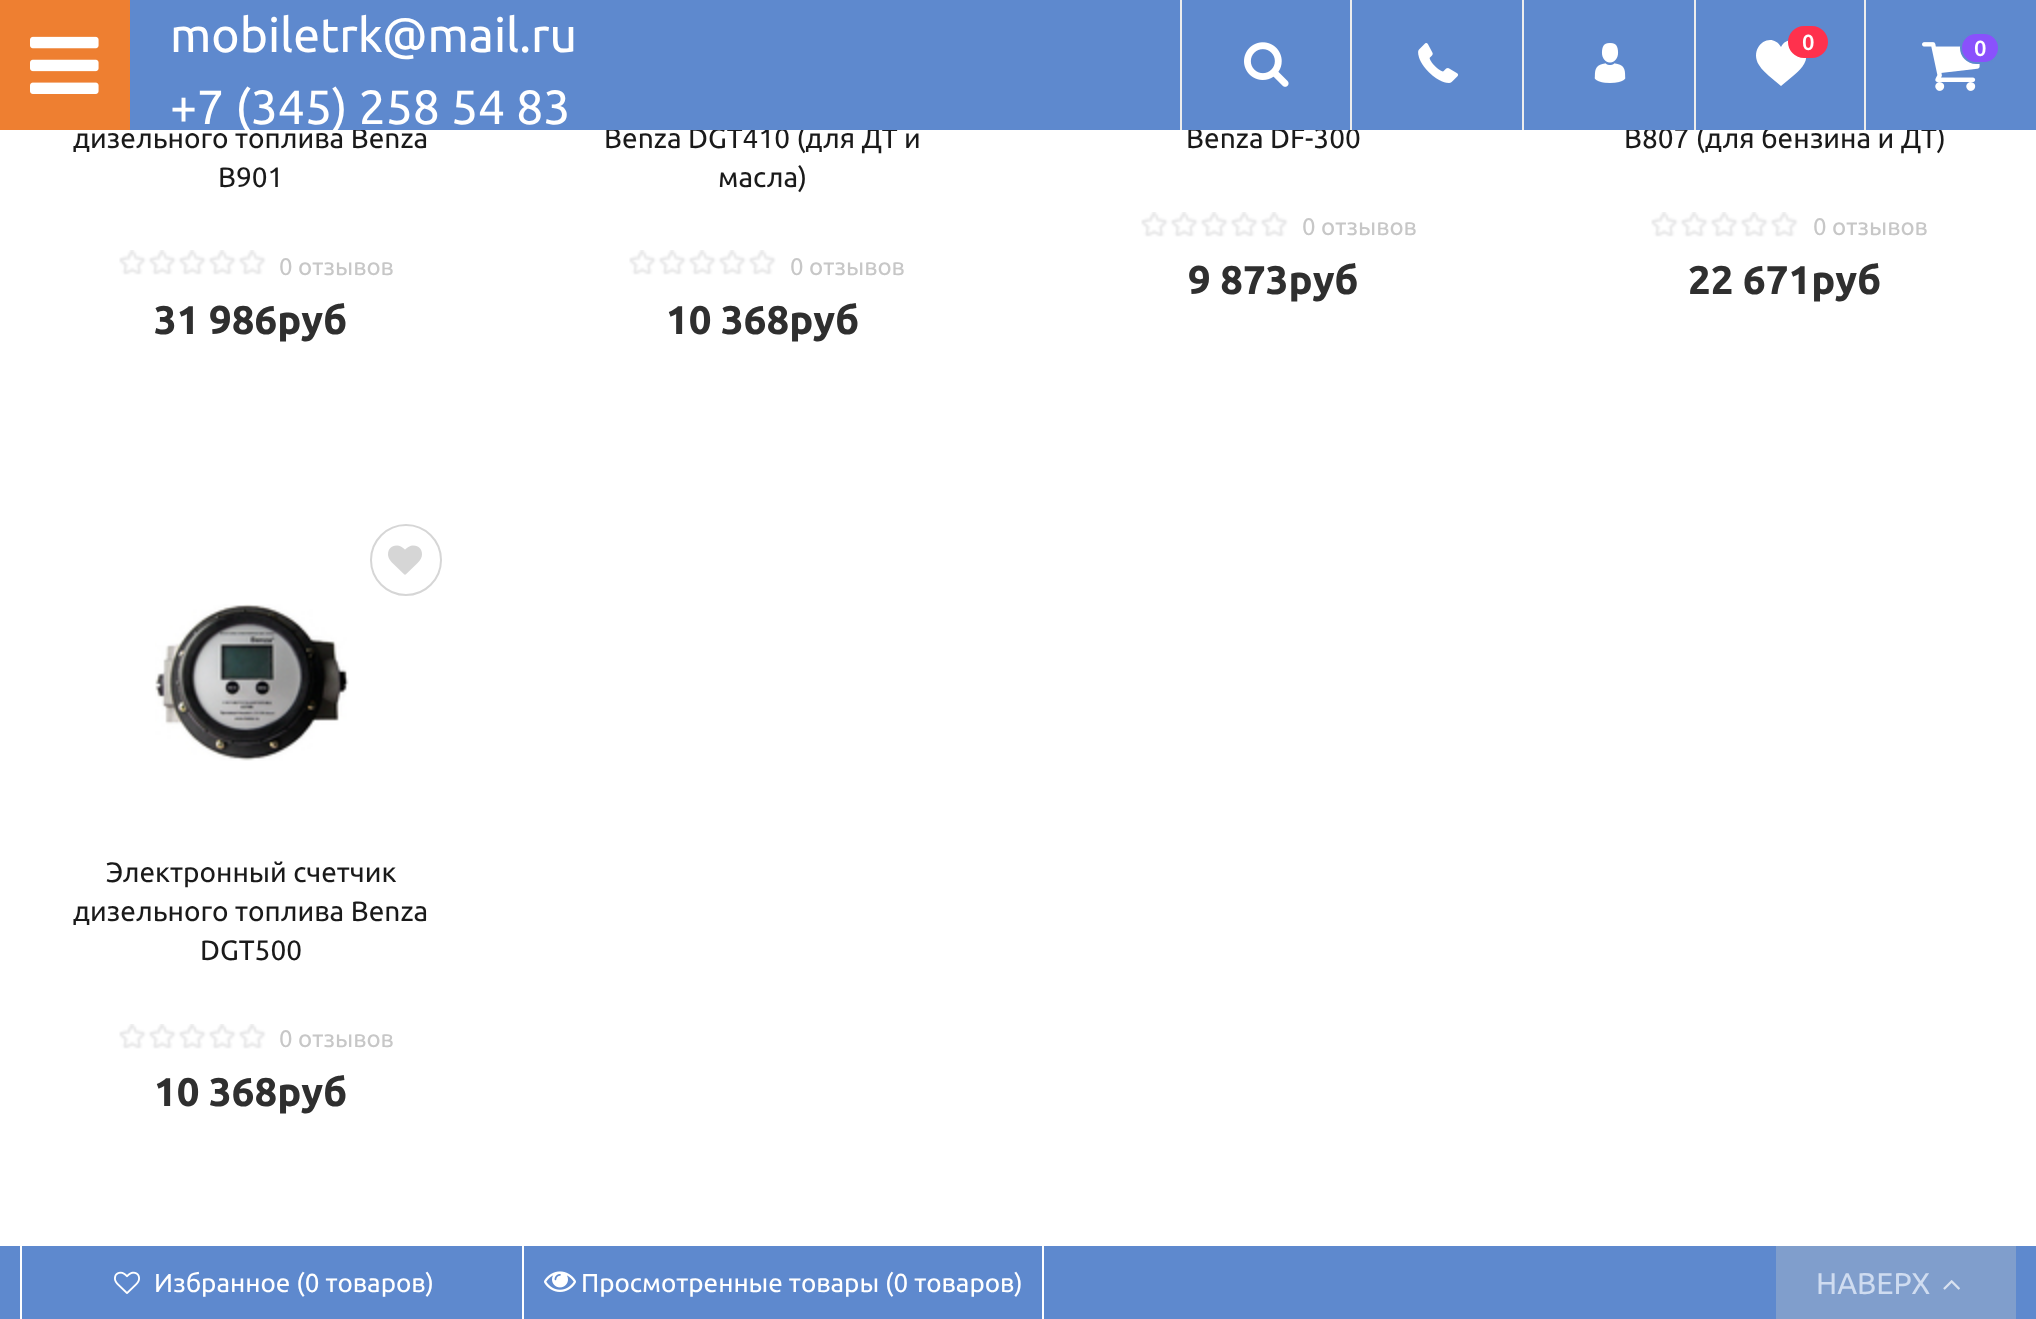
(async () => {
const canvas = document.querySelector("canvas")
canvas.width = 2036
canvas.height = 1319
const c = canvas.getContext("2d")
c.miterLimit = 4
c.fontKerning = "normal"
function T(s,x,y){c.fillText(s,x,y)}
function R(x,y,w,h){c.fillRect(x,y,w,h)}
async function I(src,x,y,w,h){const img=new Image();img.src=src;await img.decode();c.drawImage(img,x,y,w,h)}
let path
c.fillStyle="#fff"
R(0,0,2036,1319)
c.font="28px Ubuntu"
c.fillStyle="#1a1a1a"
T("дизельного топлива Benza",73,148)
T("Benza DGT410 (для ДТ и",604,148)
T("Benza DF-300",1186,148)
T("B807 (для бензина и ДТ)",1624,148)
c.fillStyle="#5e89ce"
R(130,0,1906,130)
c.fillStyle="#ee7f31"
R(0,0,130,130)
await I("1.png",30,36,69,58)
c.font="48px Ubuntu"
c.fillStyle="#fff"
T("mobiletrk@mail.ru",170,52)
T("+7 (345) 258 54 83",170,124)
c.fillStyle="#ededed"
R(1180,0,2,130)
await I("2.png",1244,42,45,45)
R(1350,0,2,130)
await I("3.png",1418,43,41,40)
R(1522,0,2,130)
await I("4.png",1594,43,32,40)
R(1694,0,2,130)
c.fillStyle="#fff"
path = new Path2D("M1806 54c2 9-7 17-13 22l-12 10l-12-10c-3-3-7-6-10-11c-11-18 12-35 22-18c7-13 24-6 25 7z")
c.fill(path)
c.fillStyle="#ff314d"
c.beginPath()
c.roundRect(1789,27,38,30,15)
c.fill()
c.strokeStyle="#ff314d"
c.lineWidth=2
c.stroke()
c.font="500 22px Ubuntu"
c.fillStyle="#fff"
T("0",1802,50)
c.fillStyle="#ededed"
R(1864,0,2,130)
await I("5.png",1922,42,58,49)
c.fillStyle="#8a51fc"
c.beginPath()
c.roundRect(1961,33,38,30,15)
c.fill()
c.strokeStyle="#5e89ce"
c.stroke()
c.fillStyle="#fff"
T("0",1974,56)
c.font="28px Ubuntu"
c.fillStyle="#1a1a1a"
T("B901",218,187)
await I("6.png",119,250,147,25)
c.font="24px Ubuntu"
c.fillStyle="#c7c7c7"
T("0 отзывов",279,275)
c.font="bold 40px Ubuntu"
c.fillStyle="#2f2f2f"
T("31 986руб",154,334)
c.font="28px Ubuntu"
c.fillStyle="#1a1a1a"
T("масла)",718,187)
await I("6.png",629,250,147,25)
c.font="24px Ubuntu"
c.fillStyle="#c7c7c7"
T("0 отзывов",790,275)
c.font="bold 40px Ubuntu"
c.fillStyle="#2f2f2f"
T("10 368руб",666,334)
await I("6.png",1141,212,147,25)
c.font="24px Ubuntu"
c.fillStyle="#c7c7c7"
T("0 отзывов",1302,235)
c.font="bold 40px Ubuntu"
c.fillStyle="#2f2f2f"
T("9 873руб",1188,294)
await I("6.png",1651,212,147,25)
c.font="24px Ubuntu"
c.fillStyle="#c7c7c7"
T("0 отзывов",1813,235)
c.font="bold 40px Ubuntu"
c.fillStyle="#2f2f2f"
T("22 671руб",1688,294)
c.beginPath()
c.arc(406,560,35,0,7)
c.strokeStyle="#d6d6d6"
c.stroke()
await I("7.png",388,545,34,30)
await I("8.png",155,604,194,157)
c.font="28px Ubuntu"
c.fillStyle="#1a1a1a"
T("Электронный счетчик",106,882)
T("дизельного топлива Benza",73,921)
T("DGT500",200,960)
await I("6.png",119,1024,147,25)
c.font="24px Ubuntu"
c.fillStyle="#c7c7c7"
T("0 отзывов",279,1047)
c.font="bold 40px Ubuntu"
c.fillStyle="#2f2f2f"
T("10 368руб",154,1106)
c.fillStyle="#5e89ce"
R(0,1246,2036,73)
c.fillStyle="#fff"
R(20,1246,2,73)
await I("9.png",114,1271,26,23)
c.font="26px Ubuntu"
T("Избранное (0 товаров)",154,1292)
R(1042,1246,2,73)
R(522,1246,2,73)
await I("10.png",544,1271,32,21)
T("Просмотренные товары (0 товаров)",581,1292)
c.fillStyle="#809ecc"
R(1776,1246,240,73)
c.font="30px Ubuntu"
c.fillStyle="#cfdcf0"
T("НАВЕРХ",1816,1294)
await I("11.png",1943,1280,17,10)
})()
